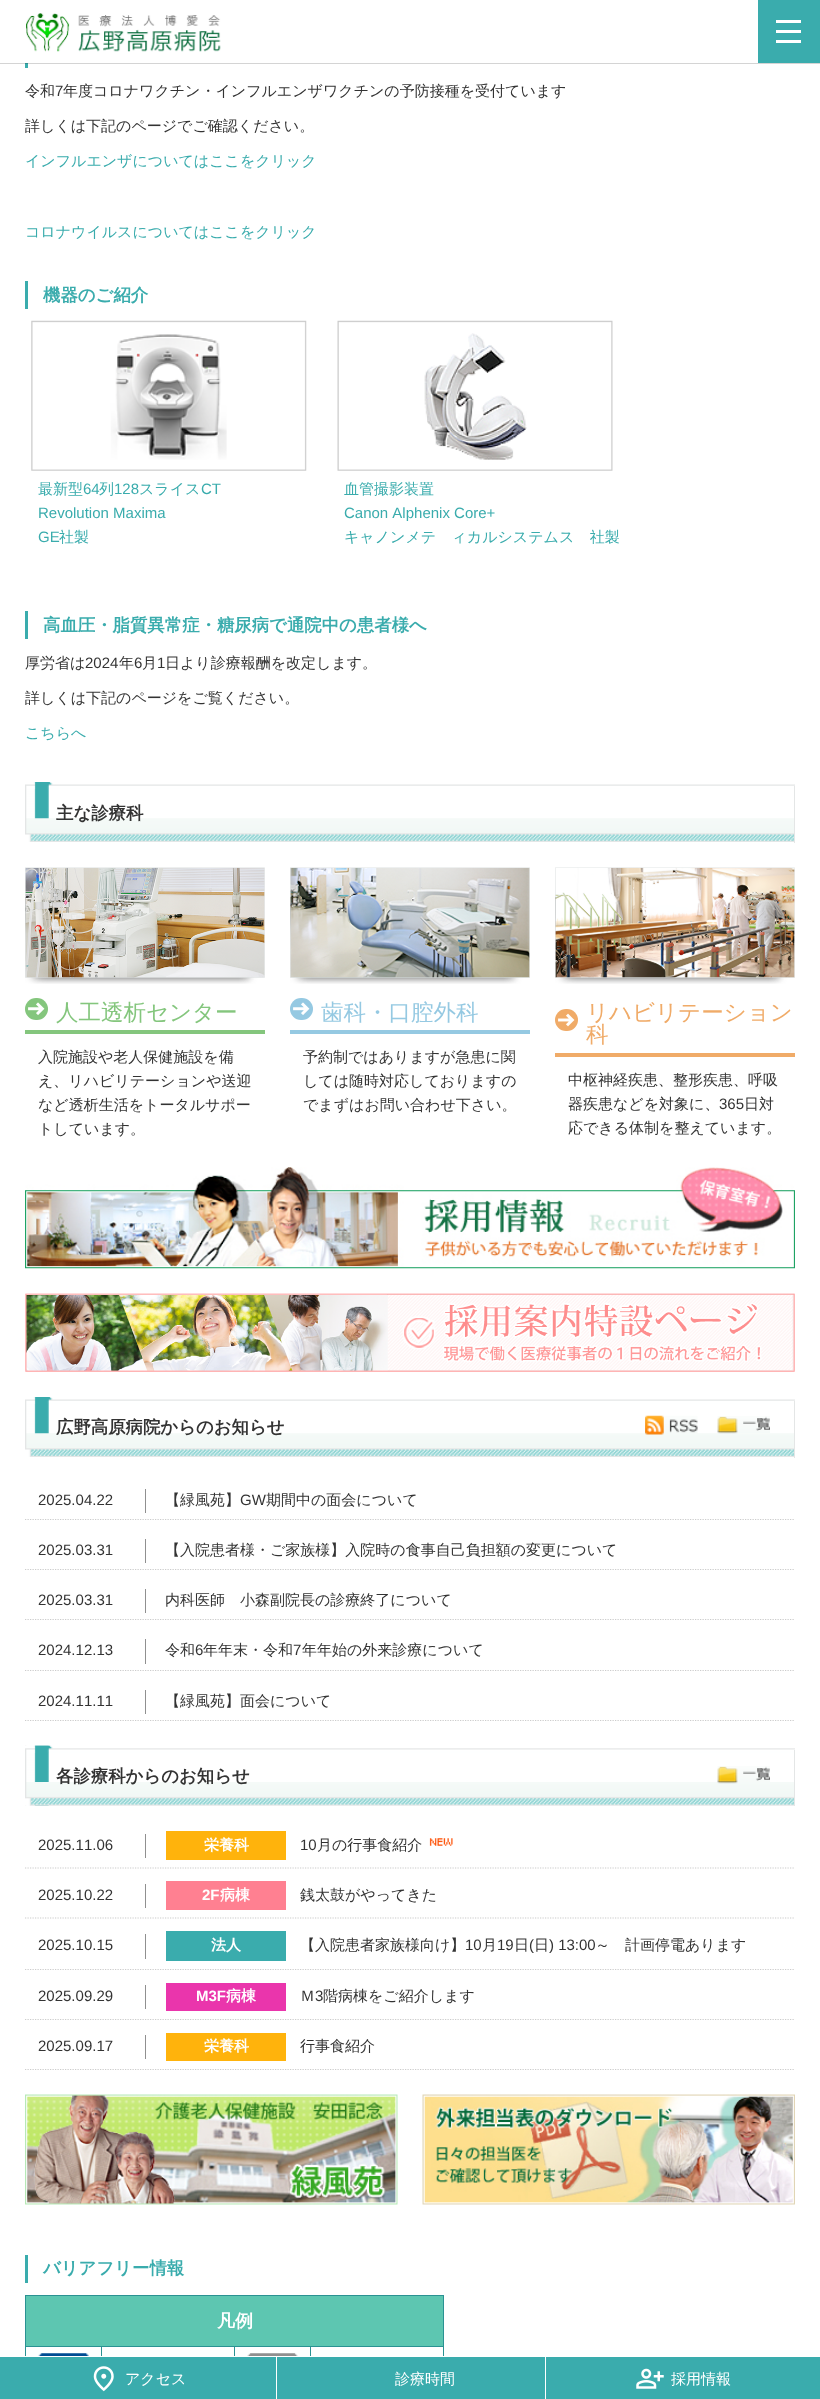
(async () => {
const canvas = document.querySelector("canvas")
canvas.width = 820
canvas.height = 2399
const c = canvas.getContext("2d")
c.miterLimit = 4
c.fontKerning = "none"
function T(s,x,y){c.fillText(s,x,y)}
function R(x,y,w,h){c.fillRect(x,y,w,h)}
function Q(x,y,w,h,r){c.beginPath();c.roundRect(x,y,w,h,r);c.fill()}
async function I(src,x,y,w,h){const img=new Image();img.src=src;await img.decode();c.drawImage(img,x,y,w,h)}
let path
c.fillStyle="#fff"
R(0,0,820,2399)
c.fillStyle="#3aacad"
R(25,63,3,5)
c.fillStyle="#0000002b"
c.filter="blur(0.5px)"
c.beginPath()
c.rect(0,1,820,63)
c.fill()
c.filter="none"
c.fillStyle="#fff"
R(0,0,758,63)
await I("1.png",26,13,195,39)
c.fillStyle="#3aacad"
R(758,0,62,63)
c.fillStyle="#fff"
R(776,20,25,3)
R(776,30,25,3)
R(776,40,25,3)
c.font="500 15px WenQuanYi Zen Hei"
c.fillStyle="#333"
T("令和",25,96)
c.font="15px Liberation Sans"
T("7",55,96)
c.font="500 15px WenQuanYi Zen Hei"
T("年度コロナワクチン・インフルエンザワクチンの予防接種を受付ています",63,96)
T("詳しくは下記のページでご確認ください。",25,131)
c.fillStyle="#3aacad"
T("インフルエンザについてはここをクリック",25,166)
T("コロナウイルスについてはここをクリック",25,237)
R(25,281,3,28)
c.font="bold 17.4px WenQuanYi Zen Hei"
T("機器のご紹介",43,301)
await I("2.png",31,320,276,151)
c.font="500 15px WenQuanYi Zen Hei"
T("最新型",38,494)
c.font="15px Liberation Sans"
T("64",83,494)
c.font="500 15px WenQuanYi Zen Hei"
T("列",99,494)
c.font="15px Liberation Sans"
T("128",114,494)
c.font="500 15px WenQuanYi Zen Hei"
T("スライス",139,494)
c.font="15px Liberation Sans"
T("CT",201,494)
T("Revolution Maxima",38,518)
T("GE",38,542)
c.font="500 15px WenQuanYi Zen Hei"
T("社製",59,542)
await I("3.png",337,320,276,151)
T("血管撮影装置",344,494)
c.font="15px Liberation Sans"
T("Canon Alphenix Core+",344,518)
c.font="500 15px WenQuanYi Zen Hei"
T("キャノンメディカルシステムズ社製",344,542)
R(25,611,3,28)
c.font="bold 17.4px WenQuanYi Zen Hei"
T("高血圧・脂質異常症・糖尿病で通院中の患者様へ",43,631)
c.font="500 15px WenQuanYi Zen Hei"
c.fillStyle="#333"
T("厚労省は",25,668)
c.font="15px Liberation Sans"
T("2024",85,668)
c.font="500 15px WenQuanYi Zen Hei"
T("年",119,668)
c.font="15px Liberation Sans"
T("6",134,668)
c.font="500 15px WenQuanYi Zen Hei"
T("月",142,668)
c.font="15px Liberation Sans"
T("1",157,668)
c.font="500 15px WenQuanYi Zen Hei"
T("日より診療報酬を改定します。",165,668)
T("詳しくは下記のページをご覧ください。",25,703)
c.fillStyle="#3aacad"
T("こちらへ",25,738)
await I("4.png",25,789,24,30)
await I("5.png",25,782,770,7)
await I("6.png",25,818,769,24)
c.fillStyle="#e4e6e6"
R(794,786,1,57)
c.font="bold 17.4px WenQuanYi Zen Hei"
c.fillStyle="#333"
T("主な診療科",56,819)
await I("7.png",25,867,240,117)
c.fillStyle="#84c67d"
R(25,1030,240,4)
Q(25,998,23,22,11)
await I("8.png",28,1002,17,13)
c.font="500 22.5px WenQuanYi Zen Hei"
T("人工透析センター",56,1020)
c.font="500 15px WenQuanYi Zen Hei"
c.fillStyle="#333"
T("入院施設や老人保健施設を備",38,1062)
T("え、リハビリテーションや送迎",38,1086)
T("など透析生活をトータルサポー",38,1110)
T("トしています。",38,1134)
await I("9.png",290,867,240,117)
c.fillStyle="#95c9e2"
R(290,1030,240,4)
Q(290,998,23,22,11)
await I("10.png",293,1002,17,13)
c.font="500 22.5px WenQuanYi Zen Hei"
T("歯科・口腔外科",321,1020)
c.font="500 15px WenQuanYi Zen Hei"
c.fillStyle="#333"
T("予約制ではありますが急患に関",303,1062)
T("しては随時対応しておりますの",303,1086)
T("でまずはお問い合わせ下さい。",303,1110)
await I("11.png",555,867,240,117)
c.fillStyle="#f0ab68"
R(555,1053,240,4)
Q(555,1009,23,22,11)
await I("12.png",558,1013,17,14)
c.font="500 22.5px WenQuanYi Zen Hei"
T("リハビリテーション",586,1020)
T("科",586,1042)
c.font="500 15px WenQuanYi Zen Hei"
c.fillStyle="#333"
T("中枢神経疾患、整形疾患、呼吸",568,1085)
T("器疾患などを対象に、",568,1109)
c.font="15px Liberation Sans"
T("365",719,1109)
c.font="500 15px WenQuanYi Zen Hei"
T("日対",744,1109)
T("応できる体制を整えています。",568,1133)
await I("13.png",25,1167,770,102)
await I("14.png",25,1293,770,79)
await I("15.png",25,1404,24,30)
await I("5.png",25,1397,770,7)
await I("6.png",25,1433,769,24)
c.fillStyle="#e4e6e6"
R(794,1401,1,57)
c.font="bold 17.4px WenQuanYi Zen Hei"
c.fillStyle="#333"
T("広野高原病院からのお知らせ",56,1433)
await I("16.png",645,1415,53,20)
await I("17.png",717,1416,53,18)
c.font="15px Liberation Sans"
T("2025.04.22",38,1505)
path = new Path2D("M25 1519.5h770")
c.strokeStyle="#ccc"
c.lineWidth=1.2
c.setLineDash([1.25,1.25])
c.stroke(path)
c.fillStyle="#909090"
R(145,1489,1,24)
c.font="500 15px WenQuanYi Zen Hei"
c.fillStyle="#333"
T("【緑風苑】",165,1505)
c.font="15px Liberation Sans"
T("GW",240,1505)
c.font="500 15px WenQuanYi Zen Hei"
T("期間中の面会について",266,1505)
c.font="15px Liberation Sans"
T("2025.03.31",38,1555)
path = new Path2D("M25 1569.5h770")
c.stroke(path)
c.fillStyle="#909090"
R(145,1539,1,24)
c.font="500 15px WenQuanYi Zen Hei"
c.fillStyle="#333"
T("【入院患者様・ご家族様】入院時の食事自己負担額の変更について",165,1555)
c.font="15px Liberation Sans"
T("2025.03.31",38,1605)
path = new Path2D("M25 1619.5h770")
c.stroke(path)
c.fillStyle="#909090"
R(145,1589,1,24)
c.font="500 15px WenQuanYi Zen Hei"
c.fillStyle="#333"
T("内科医師　小森副院長の診療終了について",165,1605)
c.font="15px Liberation Sans"
T("2024.12.13",38,1655)
path = new Path2D("M25 1670.5h770")
c.stroke(path)
c.fillStyle="#909090"
R(145,1639,1,25)
c.font="500 15px WenQuanYi Zen Hei"
c.fillStyle="#333"
T("令和",165,1655)
c.font="15px Liberation Sans"
T("6",195,1655)
c.font="500 15px WenQuanYi Zen Hei"
T("年年末・令和",203,1655)
c.font="15px Liberation Sans"
T("7",293,1655)
c.font="500 15px WenQuanYi Zen Hei"
T("年年始の外来診療について",302,1655)
c.font="15px Liberation Sans"
T("2024.11.11",38,1706)
path = new Path2D("M25 1720.5h770")
c.stroke(path)
c.fillStyle="#909090"
R(145,1690,1,24)
c.font="500 15px WenQuanYi Zen Hei"
c.fillStyle="#333"
T("【緑風苑】面会について",165,1706)
await I("18.png",25,1745,24,61)
await I("19.png",25,1745,770,8)
await I("20.png",25,1782,769,24)
c.fillStyle="#e4e6e6"
R(794,1750,1,56)
c.font="bold 17.4px WenQuanYi Zen Hei"
c.fillStyle="#333"
T("各診療科からのお知らせ",56,1782)
await I("21.png",717,1766,53,18)
c.fillStyle="#909090"
R(145,1834,1,24)
c.font="15px Liberation Sans"
c.fillStyle="#333"
T("2025.11.06",38,1850)
c.fillStyle="#ffb30c"
R(166,1831,120,29)
c.font="bold 15px WenQuanYi Zen Hei"
c.fillStyle="#fff"
T("栄養科",204,1850)
path = new Path2D("M25 1868h770")
c.stroke(path)
c.font="15px Liberation Sans"
c.fillStyle="#333"
T("10",300,1850)
c.font="500 15px WenQuanYi Zen Hei"
T("月の行事食紹介",317,1850)
await I("22.png",429,1838,24,8)
c.fillStyle="#909090"
R(145,1884,1,24)
c.font="15px Liberation Sans"
c.fillStyle="#333"
T("2025.10.22",38,1900)
c.fillStyle="#ff8091"
R(166,1881,120,29)
c.font="bold 15px Liberation Sans"
c.fillStyle="#fff"
T("2F",202,1900)
c.font="bold 15px WenQuanYi Zen Hei"
T("病棟",220,1900)
path = new Path2D("M25 1918h770")
c.stroke(path)
c.font="500 15px WenQuanYi Zen Hei"
c.fillStyle="#333"
T("銭太鼓がやってきた",300,1900)
c.fillStyle="#909090"
R(145,1934,1,25)
c.font="15px Liberation Sans"
c.fillStyle="#333"
T("2025.10.15",38,1950)
c.fillStyle="#3aacad"
R(166,1931,120,30)
c.font="bold 15px WenQuanYi Zen Hei"
c.fillStyle="#fff"
T("法人",211,1950)
path = new Path2D("M25 1969.5h770")
c.stroke(path)
c.font="500 15px WenQuanYi Zen Hei"
c.fillStyle="#333"
T("【入院患者家族様向け】",300,1950)
c.font="15px Liberation Sans"
T("10",465,1950)
c.font="500 15px WenQuanYi Zen Hei"
T("月",482,1950)
c.font="15px Liberation Sans"
T("19",497,1950)
c.font="500 15px WenQuanYi Zen Hei"
T("日",514,1950)
c.font="15px Liberation Sans"
T("(",529,1950)
c.font="500 15px WenQuanYi Zen Hei"
T("日",534,1950)
c.font="15px Liberation Sans"
T(") 13:00",549,1950)
c.font="500 15px WenQuanYi Zen Hei"
T("～　計画停電あります",595,1950)
c.fillStyle="#909090"
R(145,1985,1,24)
c.font="15px Liberation Sans"
c.fillStyle="#333"
T("2025.09.29",38,2001)
c.fillStyle="#ea35ac"
R(166,1983,120,28)
c.font="bold 15px Liberation Sans"
c.fillStyle="#fff"
T("M3F",196,2001)
c.font="bold 15px WenQuanYi Zen Hei"
T("病棟",226,2001)
path = new Path2D("M25 2019.5h770")
c.stroke(path)
c.font="500 15px WenQuanYi Zen Hei"
c.fillStyle="#333"
T("Ｍ",300,2001)
c.font="15px Liberation Sans"
T("3",315,2001)
c.font="500 15px WenQuanYi Zen Hei"
T("階病棟をご紹介します",323,2001)
c.fillStyle="#909090"
R(145,2035,1,24)
c.font="15px Liberation Sans"
c.fillStyle="#333"
T("2025.09.17",38,2051)
c.fillStyle="#ffb30c"
R(166,2033,120,28)
c.font="bold 15px WenQuanYi Zen Hei"
c.fillStyle="#fff"
T("栄養科",204,2051)
path = new Path2D("M25 2069.5h770")
c.stroke(path)
c.font="500 15px WenQuanYi Zen Hei"
c.fillStyle="#333"
T("行事食紹介",300,2051)
await I("23.png",25,2094,373,111)
await I("24.png",422,2094,373,111)
c.fillStyle="#3aacad"
R(25,2255,3,28)
c.font="bold 17.4px WenQuanYi Zen Hei"
T("バリアフリー情報",43,2274)
c.fillStyle="#5dc6b1"
R(26,2296,417,50)
c.fillStyle="#2b9293"
R(25,2295,419,1)
R(310,2346,134,1)
R(443,2346,1,10)
R(443,2295,1,53)
R(310,2346,1,10)
R(234,2346,77,1)
R(234,2346,1,10)
R(101,2346,134,1)
R(101,2346,1,10)
R(25,2346,78,1)
R(25,2346,1,10)
R(25,2295,1,53)
c.font="bold 18px WenQuanYi Zen Hei"
c.fillStyle="#fff"
T("凡例",217,2327)
await I("25.png",38,2353,51,3)
await I("26.png",247,2353,51,3)
c.fillStyle="#3aacad"
R(0,2357,276,42)
await I("27.png",93,2366,21,26)
c.font="500 15px WenQuanYi Zen Hei"
c.fillStyle="#fff"
T("アクセス",125,2384)
c.fillStyle="#3aacad"
R(277,2357,268,42)
c.fillStyle="#fff"
T("診療時間",395,2384)
c.fillStyle="#3aacad"
R(546,2357,274,42)
await I("28.png",636,2368,28,21)
c.fillStyle="#fff"
T("採用情報",671,2384)
})()
